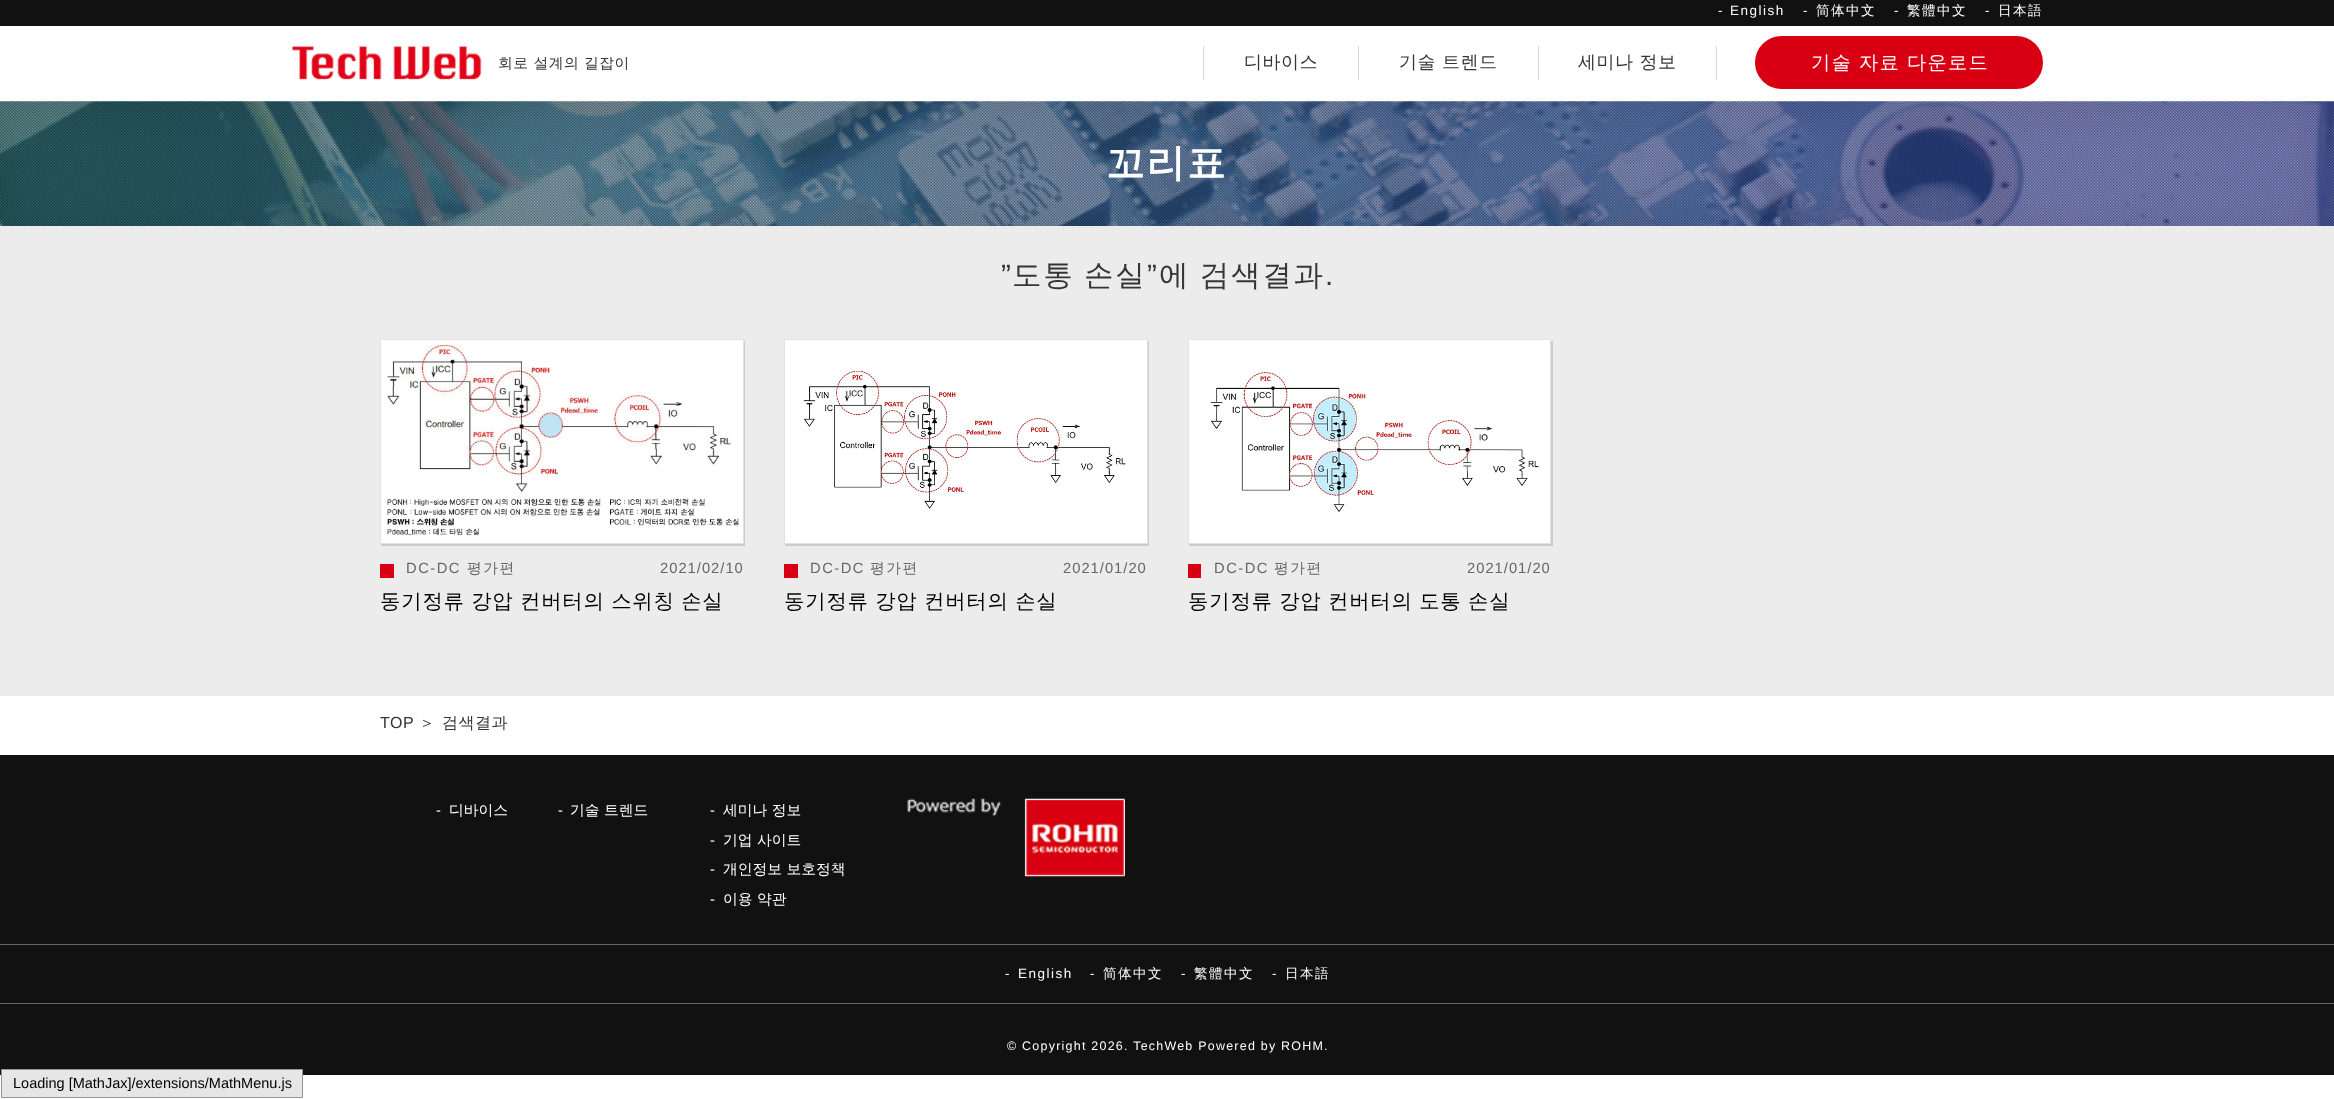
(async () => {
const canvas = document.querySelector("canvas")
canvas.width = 2334
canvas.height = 1099
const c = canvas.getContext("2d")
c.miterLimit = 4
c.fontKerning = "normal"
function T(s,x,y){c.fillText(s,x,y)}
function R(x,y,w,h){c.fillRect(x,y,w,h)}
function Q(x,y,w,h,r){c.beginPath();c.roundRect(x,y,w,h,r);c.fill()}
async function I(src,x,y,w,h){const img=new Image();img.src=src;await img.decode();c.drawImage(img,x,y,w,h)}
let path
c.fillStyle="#fff"
R(0,0,2334,1099)
c.fillStyle="#111"
R(0,0,2334,26)
c.letterSpacing="1.5px"
c.font="13.5px Liberation Sans"
c.fillStyle="#fff"
T("-",1718,15)
T("English",1730,15)
T("-",1803,15)
c.font="500 13.5px WenQuanYi Zen Hei"
T("简体中文",1816,15)
c.font="13.5px Liberation Sans"
T("-",1894,15)
c.font="500 13.5px WenQuanYi Zen Hei"
T("繁體中文",1907,15)
c.font="13.5px Liberation Sans"
T("-",1985,15)
c.font="500 13.5px WenQuanYi Zen Hei"
T("日本語",1998,15)
await I("1.png",292,45,190,35)
c.letterSpacing="0.5px"
c.font="500 14.75px WenQuanYi Zen Hei"
c.fillStyle="#353535"
T("회로 설계의 길잡이",498,68)
c.fillStyle="#d7d7d7"
R(1203,46,1,34)
c.font="500 18px WenQuanYi Zen Hei"
c.fillStyle="#353535"
T("디바이스",1244,68)
c.fillStyle="#d7d7d7"
R(1358,46,1,34)
c.fillStyle="#353535"
T("기술 트렌드",1399,68)
c.fillStyle="#d7d7d7"
R(1716,46,1,34)
R(1538,46,1,34)
c.fillStyle="#353535"
T("세미나 정보",1578,68)
c.fillStyle="#d90013"
Q(1755,36,288,53,26.5)
c.letterSpacing="1.25px"
c.font="500 19.25px WenQuanYi Zen Hei"
c.fillStyle="#fff"
T("기술 자료 다운로드",1811,69)
await I("2.png",0,101,2334,125)
c.letterSpacing="2px"
c.font="bold 38.5px WenQuanYi Zen Hei"
T("꼬리표",1106,176)
c.fillStyle="#ececec"
R(0,226,2334,470)
c.letterSpacing="1.75px"
c.font="29.5px Liberation Sans"
c.fillStyle="#353535"
T("”",1001,285)
c.wordSpacing="-1px"
c.font="500 29.5px WenQuanYi Zen Hei"
T("도통 손실",1012,285)
c.wordSpacing="0px"
c.font="29.5px Liberation Sans"
T("”",1147,285)
c.wordSpacing="-1px"
c.font="500 29.5px WenQuanYi Zen Hei"
T("에 검색결과",1159,285)
c.wordSpacing="0px"
c.font="29.5px Liberation Sans"
T(".",1325,285)
c.fillStyle="#ccc"
path = new Path2D("M381 544v2h364v-205h-1v203z")
c.fill(path)
c.fillStyle="#fff"
c.beginPath()
c.rect(380.5,339.5,363,204)
c.fill()
c.strokeStyle="#e2e2e2"
c.stroke()
await I("3.png",387,345,352,191)
c.fillStyle="#d90013"
R(380,564,14,14)
c.letterSpacing="1.5px"
c.font="14.75px Liberation Sans"
c.fillStyle="#65666a"
T("DC-DC",406,573)
c.font="500 14.75px WenQuanYi Zen Hei"
T("평가편",467,573)
c.letterSpacing="1px"
c.font="14.75px Liberation Sans"
T("2021/02/10",660,573)
c.letterSpacing="0.8px"
c.wordSpacing="-0.5px"
c.font="500 20.4px WenQuanYi Zen Hei"
c.fillStyle="#000"
T("동기정류 강압 컨버터의 스위칭 손실",380,608)
c.fillStyle="#ccc"
path = new Path2D("M785 544v2h364v-205h-1v203z")
c.fill(path)
c.fillStyle="#fff"
c.beginPath()
c.rect(784.5,339.5,363,204)
c.fill()
c.stroke()
await I("4.png",803,371,323,138)
c.fillStyle="#d90013"
R(784,564,14,14)
c.letterSpacing="1.5px"
c.wordSpacing="0px"
c.font="14.75px Liberation Sans"
c.fillStyle="#65666a"
T("DC-DC",810,573)
c.font="500 14.75px WenQuanYi Zen Hei"
T("평가편",870,573)
c.letterSpacing="1px"
c.font="14.75px Liberation Sans"
T("2021/01/20",1063,573)
c.letterSpacing="0.8px"
c.wordSpacing="-0.5px"
c.font="500 20.4px WenQuanYi Zen Hei"
c.fillStyle="#000"
T("동기정류 강압 컨버터의 손실",784,608)
c.fillStyle="#ccc"
path = new Path2D("M1189 544v2h364v-205h-2v203z")
c.fill(path)
c.fillStyle="#fff"
c.beginPath()
c.rect(1188.5,339.5,362,204)
c.fill()
c.stroke()
await I("5.png",1210,372,329,140)
c.fillStyle="#d90013"
R(1188,564,13,14)
c.letterSpacing="1.5px"
c.wordSpacing="0px"
c.font="14.75px Liberation Sans"
c.fillStyle="#65666a"
T("DC-DC",1214,573)
c.font="500 14.75px WenQuanYi Zen Hei"
T("평가편",1274,573)
c.letterSpacing="1px"
c.font="14.75px Liberation Sans"
T("2021/01/20",1467,573)
c.letterSpacing="0.8px"
c.wordSpacing="-0.5px"
c.font="500 20.4px WenQuanYi Zen Hei"
c.fillStyle="#000"
T("동기정류 강압 컨버터의 도통 손실",1188,608)
c.letterSpacing="0.5px"
c.wordSpacing="0px"
c.font="16px Liberation Sans"
c.fillStyle="#353535"
T("TOP",380,728)
c.font="500 16px WenQuanYi Zen Hei"
T("＞",419,728)
T("검색결과",442,728)
c.fillStyle="#111"
R(0,755,2334,320)
c.letterSpacing="0px"
c.font="14.75px Liberation Sans"
c.fillStyle="#fff"
T("-",436,815)
c.font="500 14.75px WenQuanYi Zen Hei"
T("디바이스",449,815)
c.font="14.75px Liberation Sans"
T("-",558,815)
c.font="500 14.75px WenQuanYi Zen Hei"
T("기술 트렌드",570,815)
c.font="14.75px Liberation Sans"
T("-",710,815)
c.font="500 14.75px WenQuanYi Zen Hei"
T("세미나 정보",723,815)
c.font="14.75px Liberation Sans"
T("-",710,845)
c.font="500 14.75px WenQuanYi Zen Hei"
T("기업 사이트",723,845)
c.font="14.75px Liberation Sans"
T("-",710,874)
c.font="500 14.75px WenQuanYi Zen Hei"
T("개인정보 보호정책",723,874)
c.font="14.75px Liberation Sans"
T("-",710,904)
c.font="500 14.75px WenQuanYi Zen Hei"
T("이용 약관",723,904)
await I("6.png",907,798,218,79)
c.fillStyle="#65666a"
R(0,944,2334,1)
R(0,1003,2334,1)
c.letterSpacing="1.5px"
c.font="13.5px Liberation Sans"
c.fillStyle="#fff"
T("-",1005,978)
T("English",1018,978)
T("-",1090,978)
c.font="500 13.5px WenQuanYi Zen Hei"
T("简体中文",1103,978)
c.font="13.5px Liberation Sans"
T("-",1181,978)
c.font="500 13.5px WenQuanYi Zen Hei"
T("繁體中文",1194,978)
c.font="13.5px Liberation Sans"
T("-",1272,978)
c.font="500 13.5px WenQuanYi Zen Hei"
T("日本語",1285,978)
c.letterSpacing="1.25px"
c.font="12.45px Liberation Sans"
T("© Copyright 2026. TechWeb Powered by ROHM.",1007,1050)
c.fillStyle="#e6e6e6"
c.beginPath()
c.rect(1.5,1069.5,301,28)
c.fill()
c.strokeStyle="#959595"
c.stroke()
c.letterSpacing="0px"
c.font="14.5px Liberation Sans"
c.fillStyle="#000"
T("Loading [MathJax]/extensions/MathMenu.js",13,1088)
})()
